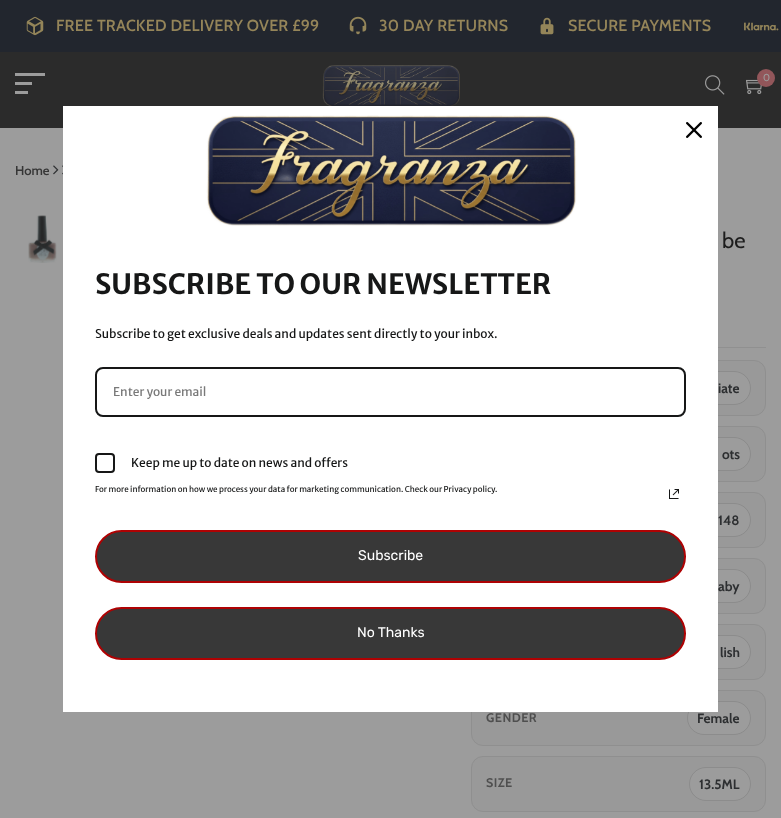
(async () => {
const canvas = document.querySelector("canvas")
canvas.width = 781
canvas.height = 818
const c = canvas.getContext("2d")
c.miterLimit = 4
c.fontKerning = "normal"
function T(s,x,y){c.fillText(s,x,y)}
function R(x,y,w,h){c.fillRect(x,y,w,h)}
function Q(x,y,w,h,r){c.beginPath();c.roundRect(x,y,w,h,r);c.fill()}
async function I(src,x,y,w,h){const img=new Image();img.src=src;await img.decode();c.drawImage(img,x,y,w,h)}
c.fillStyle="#9c9c9c"
R(0,0,781,818)
c.fillStyle="#22262e"
R(0,0,781,52)
await I("1.png",26,16,18,20)
c.letterSpacing="0.2px"
c.font="600 16px Cabin"
c.fillStyle="#958559"
T("FREE TRACKED DELIVERY OVER £99",56,31)
await I("2.png",349,16,18,19)
T("30 DAY RETURNS",379,31)
await I("3.png",540,17,14,18)
T("SECURE PAYMENTS",568,31)
await I("4.png",744,22,35,9)
c.fillStyle="#2b2b2b"
R(0,52,781,76)
c.fillStyle="#9c9c9c"
R(15,73,30,3)
R(15,82,17,3)
R(15,91,13,3)
await I("5.png",322,65,138,41)
await I("6.png",705,75,20,20)
await I("7.png",746,79,16,16)
c.fillStyle="#92565a"
c.beginPath()
c.arc(766,78,9,0,7)
c.fill()
c.letterSpacing="0px"
c.font="10px Cabin"
c.fillStyle="#9c9c9c"
T("0",763,81)
c.font="600 13px Cabin"
c.fillStyle="#363636"
T("Home",15,175)
await I("8.png",53,165,6,10)
await I("9.png",62,165,1,10)
await I("10.png",28,215,29,48)
c.font="22px Cabin"
c.fillStyle="#1d1d1d"
T("be",722,248)
c.fillStyle="#909090"
R(718,347,48,1)
c.fillStyle="#999"
c.beginPath()
c.roundRect(471.5,360.5,294,55,11.5)
c.fill()
c.strokeStyle="#8f8f8f"
c.stroke()
c.fillStyle="#9c9c9c"
Q(699,371,52,34,17)
c.beginPath()
c.roundRect(699.5,371.5,51,33,16.5)
c.strokeStyle="#1c1c1c1f"
c.stroke()
c.font="bold 13.5px Cabin"
c.fillStyle="#2d2f31"
T("iate",718,393)
c.fillStyle="#999"
c.beginPath()
c.roundRect(471.5,426.5,294,55,11.5)
c.fill()
c.strokeStyle="#8f8f8f"
c.stroke()
c.fillStyle="#9c9c9c"
Q(670,437,81,34,17)
c.beginPath()
c.roundRect(670.5,437.5,80,33,16.5)
c.strokeStyle="#1c1c1c1f"
c.stroke()
c.fillStyle="#2d2f31"
T("ots",722,459)
c.fillStyle="#999"
c.beginPath()
c.roundRect(471.5,492.5,294,55,11.5)
c.fill()
c.strokeStyle="#8f8f8f"
c.stroke()
c.fillStyle="#9c9c9c"
Q(692,503,59,34,17)
c.beginPath()
c.roundRect(692.5,503.5,58,33,16.5)
c.strokeStyle="#1c1c1c1f"
c.stroke()
c.fillStyle="#2d2f31"
T("148",718,525)
c.fillStyle="#999"
c.beginPath()
c.roundRect(471.5,558.5,294,55,11.5)
c.fill()
c.strokeStyle="#8f8f8f"
c.stroke()
c.fillStyle="#9c9c9c"
Q(656,569,95,34,17)
c.beginPath()
c.roundRect(656.5,569.5,94,33,16.5)
c.strokeStyle="#1c1c1c1f"
c.stroke()
c.fillStyle="#2d2f31"
T("aby",718,591)
c.fillStyle="#999"
c.beginPath()
c.roundRect(471.5,624.5,294,55,11.5)
c.fill()
c.strokeStyle="#8f8f8f"
c.stroke()
c.fillStyle="#9c9c9c"
Q(668,635,83,34,17)
c.beginPath()
c.roundRect(668.5,635.5,82,33,16.5)
c.strokeStyle="#1c1c1c1f"
c.stroke()
c.fillStyle="#2d2f31"
T("lish",720,657)
c.fillStyle="#999"
c.beginPath()
c.roundRect(471.5,690.5,294,55,11.5)
c.fill()
c.strokeStyle="#8f8f8f"
c.stroke()
c.letterSpacing="0.5px"
c.font="bold 12.5px Cabin"
c.fillStyle="#4f4f4f"
T("GENDER",486,722)
c.fillStyle="#9c9c9c"
Q(687,701,64,34,17)
c.beginPath()
c.roundRect(687.5,701.5,63,33,16.5)
c.strokeStyle="#1c1c1c1f"
c.stroke()
c.letterSpacing="0px"
c.font="bold 13.5px Cabin"
c.fillStyle="#2d2f31"
T("Female",697,723)
c.fillStyle="#999"
c.beginPath()
c.roundRect(471.5,756.5,294,55,11.5)
c.fill()
c.strokeStyle="#8f8f8f"
c.stroke()
c.letterSpacing="0.5px"
c.font="bold 12.5px Cabin"
c.fillStyle="#4f4f4f"
T("SIZE",486,787)
c.fillStyle="#9c9c9c"
Q(689,767,62,34,17)
c.beginPath()
c.roundRect(689.5,767.5,61,33,16.5)
c.strokeStyle="#1c1c1c1f"
c.stroke()
c.letterSpacing="0px"
c.font="bold 13.5px Cabin"
c.fillStyle="#2d2f31"
T("13.5ML",699,789)
c.fillStyle="#fff"
R(63,106,655,606)
await I("11.png",686,122,16,16)
await I("12.png",206,115,371,111)
c.font="bold 28px Merriweather Sans"
c.fillStyle="#161717"
T("SUBSCRIBE TO OUR NEWSLETTER",95,294)
c.font="12px Merriweather Sans"
T("Subscribe to get exclusive deals and updates sent directly to your inbox.",95,338)
c.beginPath()
c.roundRect(96,368,589,48,7)
c.strokeStyle="#161717"
c.lineWidth=2
c.stroke()
c.fillStyle="#797979"
T("Enter your email",113,396)
c.beginPath()
c.roundRect(96,454,18,18,3)
c.stroke()
c.fillStyle="#161717"
T("Keep me up to date on news and offers",131,467)
c.font="8px Merriweather Sans"
T("For more information on how we process your data for marketing communication. Check our Privacy policy.",95,492)
await I("13.png",669,489,10,10)
c.fillStyle="#383838"
c.beginPath()
c.roundRect(96,531,589,51,25.5)
c.fill()
c.strokeStyle="#ae0203"
c.stroke()
c.font="14px Rubik"
c.fillStyle="#fff"
T("Subscribe",358,560)
c.fillStyle="#383838"
c.beginPath()
c.roundRect(96,608,589,51,25.5)
c.fill()
c.stroke()
c.fillStyle="#fff"
T("No Thanks",357,637)
})()
